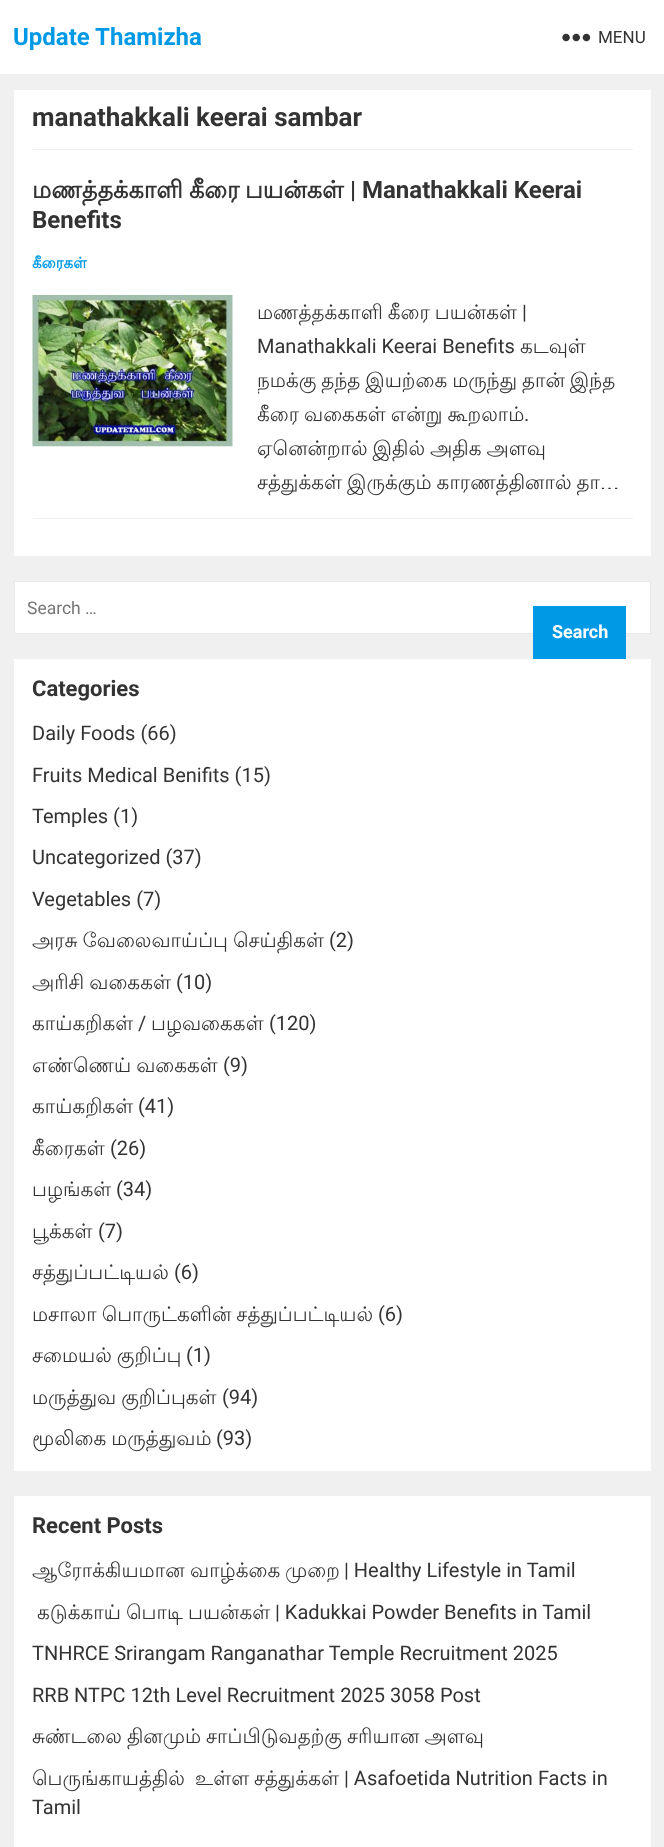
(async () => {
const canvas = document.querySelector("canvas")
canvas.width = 664
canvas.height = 1847
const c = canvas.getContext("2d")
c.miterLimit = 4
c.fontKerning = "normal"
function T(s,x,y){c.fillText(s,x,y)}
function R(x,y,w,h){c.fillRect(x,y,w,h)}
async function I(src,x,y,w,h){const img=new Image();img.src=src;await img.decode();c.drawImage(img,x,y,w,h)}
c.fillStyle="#f0f0f0"
R(0,0,664,1847)
c.fillStyle="#fff"
R(0,0,664,74)
c.font="bold 24px Roboto"
c.fillStyle="#0099e5"
T("Update Thamizha",13,45)
await I("1.png",562,33,29,9)
c.font="17px Roboto"
c.fillStyle="#333"
T("MENU",598,43)
c.fillStyle="#fff"
R(14,90,637,466)
c.fillStyle="#f0f0f0"
R(33,149,600,1)
c.font="bold 26px Roboto"
c.fillStyle="#333"
T("manathakkali keerai sambar",32,126)
c.fillStyle="#f0f0f0"
R(33,518,600,1)
c.font="bold 24px Lohit Tamil"
c.fillStyle="#333"
T("மணத்தக்காளி",32,198)
T("கீரை",189,198)
T("பயன்கள்",245,198)
c.font="bold 24px Roboto"
T("| Manathakkali Keerai",350,198)
T("Benefits",32,228)
c.font="bold 15px Lohit Tamil"
c.fillStyle="#0099e5"
T("கீரைகள்",32,268)
await I("2.png",32,295,201,152)
c.wordSpacing="-1px"
c.font="20px Lohit Tamil"
c.fillStyle="#333"
T("மணத்தக்காளி கீரை பயன்கள்",257,319)
c.wordSpacing="0px"
c.font="20px Roboto"
T("|",522,319)
T("Manathakkali Keerai Benefits",257,353)
c.font="20px Lohit Tamil"
T("கடவுள்",520,353)
c.save()
c.beginPath()
c.rect(258,295,375,204)
c.clip()
c.wordSpacing="-1px"
T("நமக்கு தந்த இயற்கை மருந்து தான் இந்த",257,387)
c.restore()
c.wordSpacing="-1px"
T("கீரை வகைகள் என்று கூறலாம்",257,421)
c.wordSpacing="0px"
c.font="20px Roboto"
T(".",524,421)
c.wordSpacing="-1px"
c.font="20px Lohit Tamil"
T("ஏனென்றால் இதில் அதிக அளவு",257,455)
T("சத்துக்கள் இருக்கும் காரணத்தினால் தா…",257,489)
c.fillStyle="#fff"
c.beginPath()
c.rect(14.5,581.5,636,52)
c.fill()
c.strokeStyle="#e9e9e9"
c.stroke()
c.wordSpacing="0px"
c.font="17.5px Roboto"
c.fillStyle="#757575"
T("Search …",27,614)
c.fillStyle="#0099e5"
R(533,606,93,53)
c.font="bold 18px Roboto"
c.fillStyle="#fff"
T("Search",552,638)
R(14,659,637,812)
c.font="bold 22px Roboto"
c.fillStyle="#333"
T("Categories",32,696)
c.font="20px Roboto"
T("Daily Foods (66)",32,740)
T("Fruits Medical Benifits (15)",32,782)
T("Temples (1)",32,823)
T("Uncategorized (37)",32,864)
T("Vegetables (7)",32,906)
c.wordSpacing="-1px"
c.font="20px Lohit Tamil"
T("அரசு வேலைவாய்ப்பு செய்திகள்",32,947)
c.wordSpacing="0px"
c.font="20px Roboto"
T("(2)",329,947)
c.wordSpacing="-1px"
c.font="20px Lohit Tamil"
T("அரிசி வகைகள்",32,989)
c.wordSpacing="0px"
c.font="20px Roboto"
T("(10)",176,989)
c.font="20px Lohit Tamil"
T("காய்கறிகள்",32,1030)
c.font="20px Roboto"
T("/",138,1030)
c.font="20px Lohit Tamil"
T("பழவகைகள்",151,1030)
c.font="20px Roboto"
T("(120)",269,1030)
c.wordSpacing="-1px"
c.font="20px Lohit Tamil"
T("எண்ணெய் வகைகள்",32,1072)
c.wordSpacing="0px"
c.font="20px Roboto"
T("(9)",223,1072)
c.font="20px Lohit Tamil"
T("காய்கறிகள்",32,1113)
c.font="20px Roboto"
T("(41)",138,1113)
c.font="20px Lohit Tamil"
T("கீரைகள்",32,1155)
c.font="20px Roboto"
T("(26)",110,1155)
c.font="20px Lohit Tamil"
T("பழங்கள்",32,1196)
c.font="20px Roboto"
T("(34)",116,1196)
c.font="20px Lohit Tamil"
T("பூக்கள்",32,1238)
c.font="20px Roboto"
T("(7)",98,1238)
c.font="20px Lohit Tamil"
T("சத்துப்பட்டியல்",32,1279)
c.font="20px Roboto"
T("(6)",174,1279)
c.wordSpacing="-1px"
c.font="20px Lohit Tamil"
T("மசாலா பொருட்களின் சத்துப்பட்டியல்",32,1321)
c.wordSpacing="0px"
c.font="20px Roboto"
T("(6)",378,1321)
c.wordSpacing="-1px"
c.font="20px Lohit Tamil"
T("சமையல் குறிப்பு",32,1362)
c.wordSpacing="0px"
c.font="20px Roboto"
T("(1)",186,1362)
c.wordSpacing="-1px"
c.font="20px Lohit Tamil"
T("மருத்துவ குறிப்புகள்",32,1404)
c.wordSpacing="0px"
c.font="20px Roboto"
T("(94)",222,1404)
c.wordSpacing="-1px"
c.font="20px Lohit Tamil"
T("மூலிகை மருத்துவம்",32,1445)
c.wordSpacing="0px"
c.font="20px Roboto"
T("(93)",216,1445)
c.fillStyle="#fff"
R(14,1496,637,351)
c.font="bold 22px Roboto"
c.fillStyle="#333"
T("Recent Posts",32,1533)
c.font="20px Lohit Tamil"
T("ஆரோக்கியமான",32,1577)
T("வாழ்க்கை",190,1577)
T("முறை",285,1577)
c.font="20px Roboto"
T("| Healthy Lifestyle in Tamil",344,1577)
c.font="20px Lohit Tamil"
T("கடுக்காய்",37,1619)
T("பொடி",126,1619)
T("பயன்கள்",188,1619)
c.font="20px Roboto"
T("| Kadukkai Powder Benefits in Tamil",275,1619)
T("TNHRCE Srirangam Ranganathar Temple Recruitment 2025",32,1660)
T("RRB NTPC 12th Level Recruitment 2025 3058 Post",32,1702)
c.wordSpacing="-1px"
c.font="20px Lohit Tamil"
T("சுண்டலை தினமும் சாப்பிடுவதற்கு சரியான அளவு",32,1743)
c.wordSpacing="0px"
T("பெருங்காயத்தில்",32,1785)
T("உள்ள",195,1785)
T("சத்துக்கள்",254,1785)
c.font="20px Roboto"
T("| Asafoetida Nutrition Facts in",344,1785)
T("Tamil",32,1814)
})()
